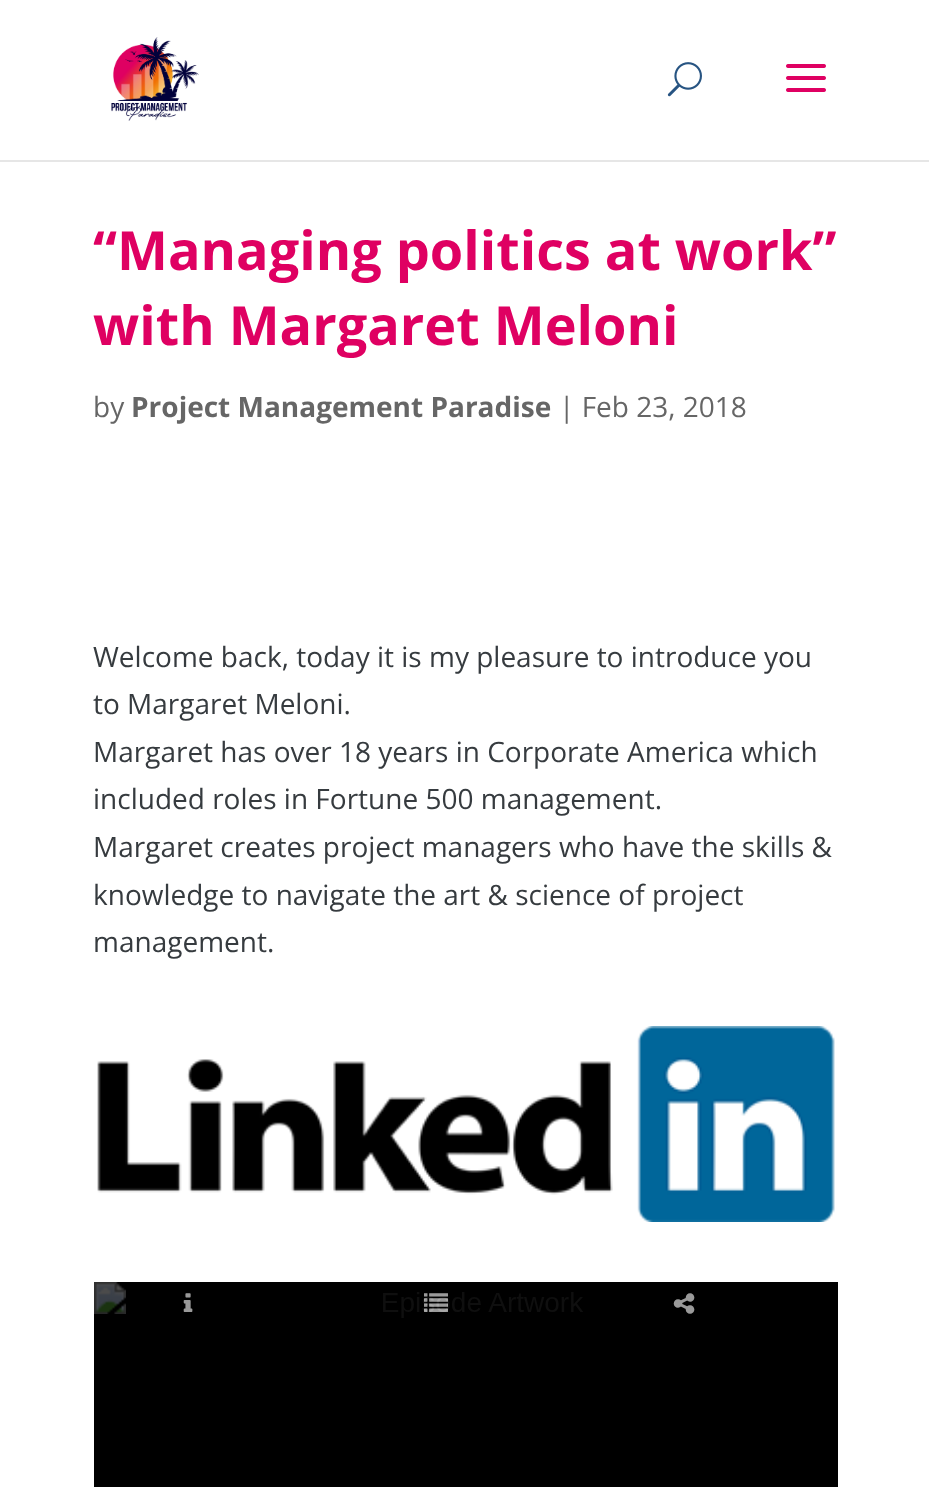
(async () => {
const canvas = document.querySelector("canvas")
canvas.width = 929
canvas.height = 1487
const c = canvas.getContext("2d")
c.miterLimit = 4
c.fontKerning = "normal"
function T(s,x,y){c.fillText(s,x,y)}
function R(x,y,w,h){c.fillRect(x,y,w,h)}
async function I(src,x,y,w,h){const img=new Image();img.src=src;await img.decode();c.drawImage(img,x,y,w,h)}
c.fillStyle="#fff"
R(0,0,929,1487)
c.fillStyle="#e6e6e6"
R(0,160,929,2)
await I("1.png",111,37,88,84)
await I("2.png",667,62,35,35)
await I("3.png",786,64,40,28)
c.font="bold 54px Open Sans"
c.fillStyle="#df0062"
T("“Managing politics at work”",93,270)
T("with Margaret Meloni",93,345)
c.font="28px Open Sans"
c.fillStyle="#666"
T("by",93,417)
c.font="bold 28px Open Sans"
T("Project Management Paradise",131,417)
c.font="28px Open Sans"
T("| Feb 23, 2018",559,417)
c.fillStyle="#363b3f"
T("Welcome back, today it is my pleasure to introduce you",93,667)
T("to Margaret Meloni.",93,714)
T("Margaret has over 18 years in Corporate America which",93,762)
T("included roles in Fortune 500 management.",93,809)
T("Margaret creates project managers who have the skills &",93,857)
T("knowledge to navigate the art & science of project",93,905)
T("management.",93,952)
await I("4.png",97,1026,738,196)
await I("5.png",94,1282,744,205)
})()
